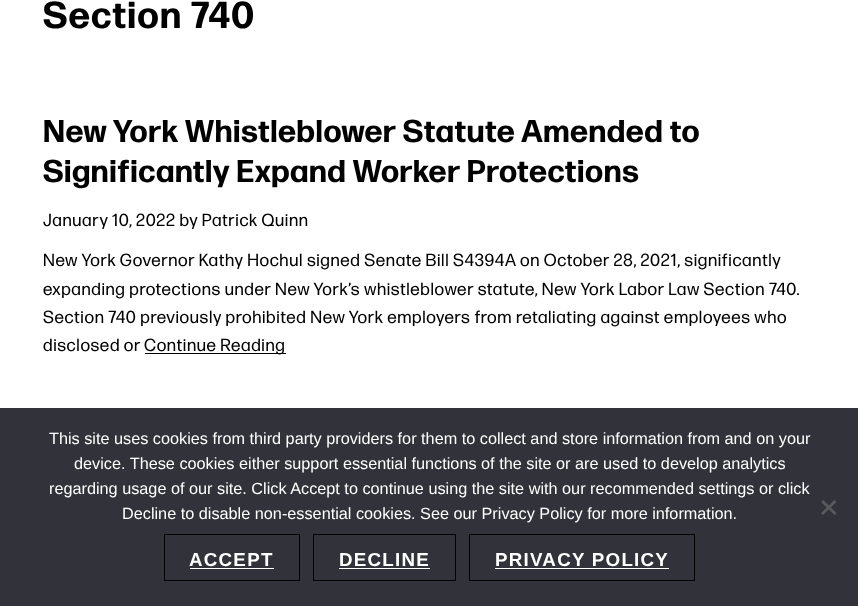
(async () => {
const canvas = document.querySelector("canvas")
canvas.width = 858
canvas.height = 606
const c = canvas.getContext("2d")
c.miterLimit = 4
c.fontKerning = "normal"
function T(s,x,y){c.fillText(s,x,y)}
function R(x,y,w,h){c.fillRect(x,y,w,h)}
let path
c.fillStyle="#fff"
R(0,0,858,606)
c.letterSpacing="1.25px"
c.font="bold 37.5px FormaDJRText"
c.fillStyle="#000"
T("Section 740",43,28)
c.letterSpacing="0.62px"
c.font="bold 31.5px FormaDJRText"
T("New York Whistleblower Statute Amended to",43,142)
T("Significantly Expand Worker Protections",43,182)
c.font="17.5px FormaDJRText"
T("January 10, 2022 by Patrick Quinn",43,226)
T("New York Governor Kathy Hochul signed Senate Bill S4394A on October 28, 2021, significantly",43,266)
T("expanding protections under New York’s whistleblower statute, New York Labor Law Section 740.",43,295)
T("Section 740 previously prohibited New York employers from retaliating against employees who",43,323)
T("disclosed or",43,351)
R(145,353,141,1)
T("Continue Reading",144,351)
c.fillStyle="#32323a"
R(0,408,858,198)
c.letterSpacing="0px"
c.font="16.25px Liberation Sans"
c.fillStyle="#fff"
T("This site uses cookies from third party providers for them to collect and store information from and on your",49,444)
T("device. These cookies either support essential functions of the site or are used to develop analytics",74,469)
T("regarding usage of our site. Click Accept to continue using the site with our recommended settings or click",49,494)
T("Decline to disable non-essential cookies. See our Privacy Policy for more information.",122,519)
c.fillStyle="#59595d"
path = new Path2D("M834.5 500l2 2l-13.5 13l-2-2z")
c.fill(path)
path = new Path2D("M821 502l2-2l13.5 13l-2 2z")
c.fill(path)
c.strokeStyle="#000"
c.strokeRect(164.5,534.5,135,46)
c.letterSpacing="1.25px"
c.font="bold 18.75px Liberation Sans"
c.fillStyle="#fff"
T("ACCEPT",189,566)
R(190,568,84,1)
c.strokeRect(313.5,534.5,142,46)
T("DECLINE",339,566)
R(339,568,91,1)
c.strokeRect(469.5,534.5,225,46)
T("PRIVACY POLICY",495,566)
R(495,568,174,1)
})()
